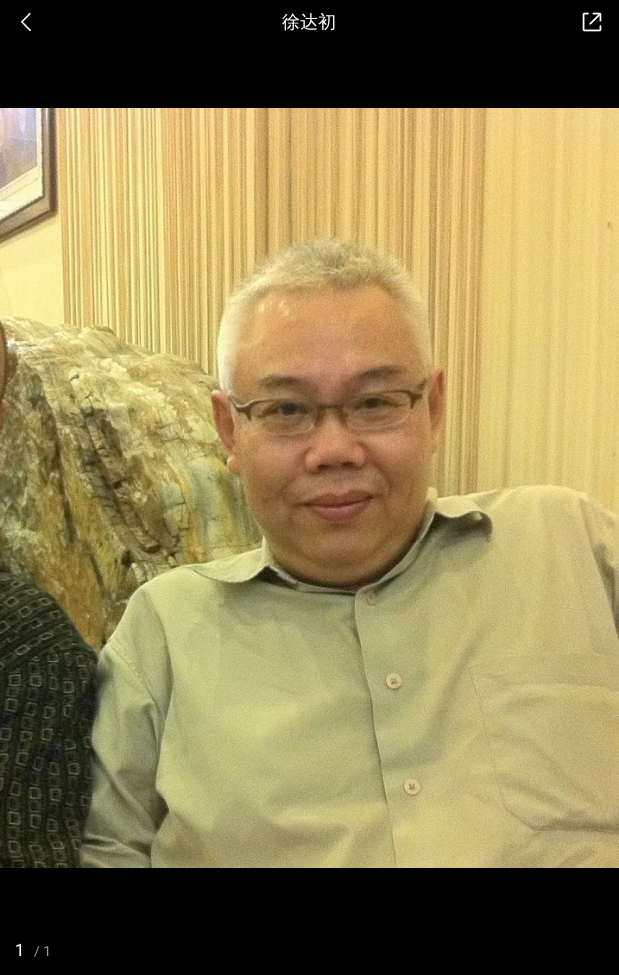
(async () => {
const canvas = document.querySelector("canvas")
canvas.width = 619
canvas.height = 975
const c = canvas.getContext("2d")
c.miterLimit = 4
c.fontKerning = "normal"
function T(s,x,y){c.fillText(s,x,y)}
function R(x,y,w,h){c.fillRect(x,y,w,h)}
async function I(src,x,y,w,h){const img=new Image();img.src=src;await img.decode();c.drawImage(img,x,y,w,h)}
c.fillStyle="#000"
R(0,0,619,975)
await I("1.png",21,12,10,20)
c.font="500 18px WenQuanYi Zen Hei"
c.fillStyle="#fff"
T("徐达初",282,28)
await I("2.png",582,12,20,20)
await I("3.png",0,108,619,760)
c.font="17px Roboto"
T("1",15,956)
c.font="14px Roboto"
c.fillStyle="#999"
T("/ 1",34,956)
})()
